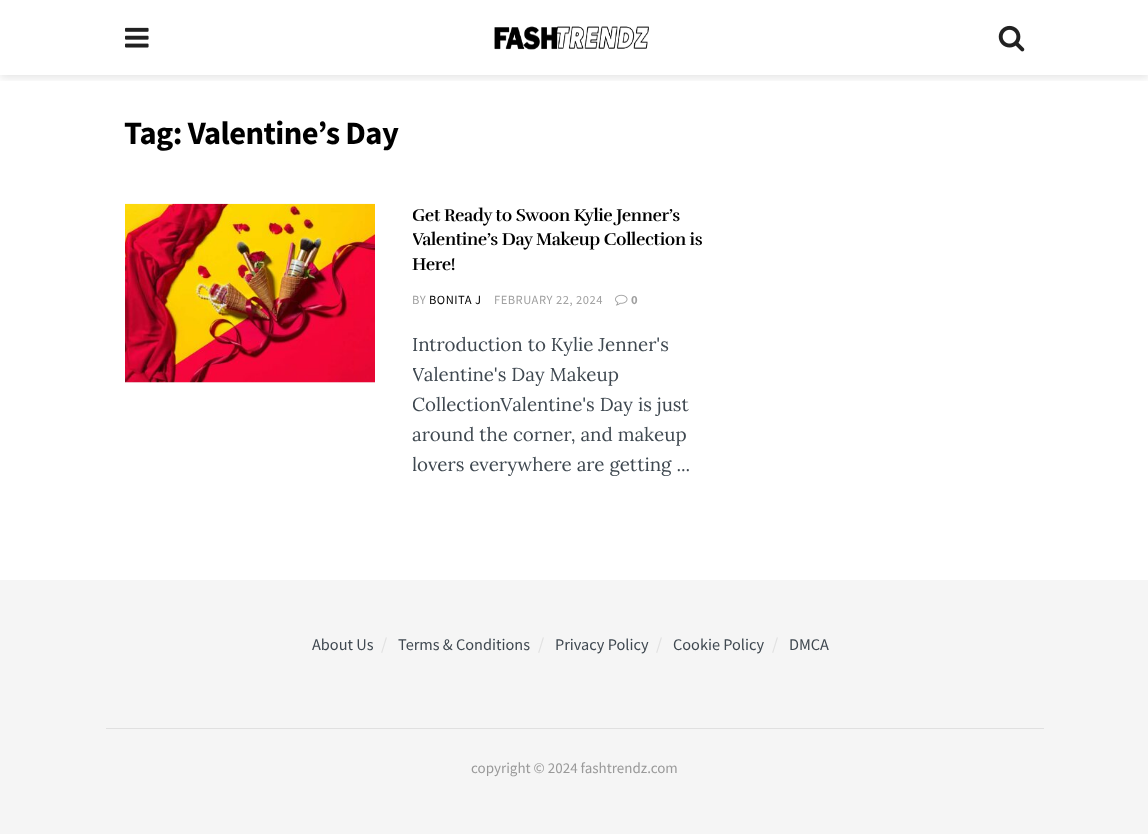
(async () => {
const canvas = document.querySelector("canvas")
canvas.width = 1148
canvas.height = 834
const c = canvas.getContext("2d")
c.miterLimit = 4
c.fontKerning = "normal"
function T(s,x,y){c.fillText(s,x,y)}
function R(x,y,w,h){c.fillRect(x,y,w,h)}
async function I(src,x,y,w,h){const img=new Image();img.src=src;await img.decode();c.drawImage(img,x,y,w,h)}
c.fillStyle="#fff"
R(0,0,1148,834)
c.save()
c.beginPath()
c.rect(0,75,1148,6)
c.clip()
c.fillStyle="#0000001a"
c.filter="blur(4px)"
c.beginPath()
c.rect(0,3,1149,75)
c.fill()
c.filter="none"
c.restore()
await I("1.png",125,27,24,21)
await I("2.png",494,26,155,24)
await I("3.png",998,25,27,27)
c.letterSpacing="-0.6px"
c.font="bold 32.5px Source Sans Pro"
c.fillStyle="#000"
T("Tag: Valentine’s Day",124,144)
c.fillStyle="#f7f7f7"
R(125,382,250,1)
await I("4.png",125,203,250,180)
c.save()
c.beginPath()
c.rect(413,204,300,276)
c.clip()
c.letterSpacing="-0.35px"
c.font="bold 17.5px Rufina"
c.fillStyle="#000"
T("Get Ready to Swoon Kylie Jenner’s",412,221)
T("Valentine’s Day Makeup Collection is",412,245)
c.restore()
c.letterSpacing="-0.35px"
c.font="bold 17.5px Rufina"
c.fillStyle="#000"
T("Here!",412,270)
c.letterSpacing="0.5px"
c.font="12.5px Source Sans Pro"
c.fillStyle="#a0a0a0"
T("BY",412,304)
c.fillStyle="#000"
T("BONITA J",429,304)
c.fillStyle="#a0a0a0"
T("FEBRUARY 22, 2024",494,304)
await I("5.png",615,294,13,12)
c.font="bold 12.5px Source Sans Pro"
T("0",631,304)
c.letterSpacing="0px"
c.font="18.75px Lora"
c.fillStyle="#3f4850"
T("Introduction to Kylie Jenner's",412,351)
c.save()
c.beginPath()
c.rect(413,204,300,276)
c.clip()
T("Valentine's Day Makeup",412,381)
T("CollectionValentine's Day is just",412,411)
c.restore()
T("around the corner, and makeup",412,441)
c.save()
c.beginPath()
c.rect(413,204,300,276)
c.clip()
T("lovers everywhere are getting ...",412,471)
c.restore()
c.fillStyle="#f5f5f5"
R(0,580,1148,254)
c.font="16.25px Source Sans Pro"
c.fillStyle="#3f4850"
T("About Us",312,650)
c.font="17.5px Source Sans Pro"
c.fillStyle="#e0e0e0"
T("/",381,650)
c.font="16.25px Source Sans Pro"
c.fillStyle="#3f4850"
T("Terms & Conditions",398,650)
c.font="17.5px Source Sans Pro"
c.fillStyle="#e0e0e0"
T("/",538,650)
c.font="16.25px Source Sans Pro"
c.fillStyle="#3f4850"
T("Privacy Policy",555,650)
c.font="17.5px Source Sans Pro"
c.fillStyle="#e0e0e0"
T("/",656,650)
c.font="16.25px Source Sans Pro"
c.fillStyle="#3f4850"
T("Cookie Policy",673,650)
c.font="17.5px Source Sans Pro"
c.fillStyle="#e0e0e0"
T("/",772,650)
c.font="16.25px Source Sans Pro"
c.fillStyle="#3f4850"
T("DMCA",789,650)
c.fillStyle="#e0e0e0"
R(106,728,938,1)
c.font="15px Source Sans Pro"
c.fillStyle="#999"
T("copyright © 2024 fashtrendz.com",471,773)
})()
